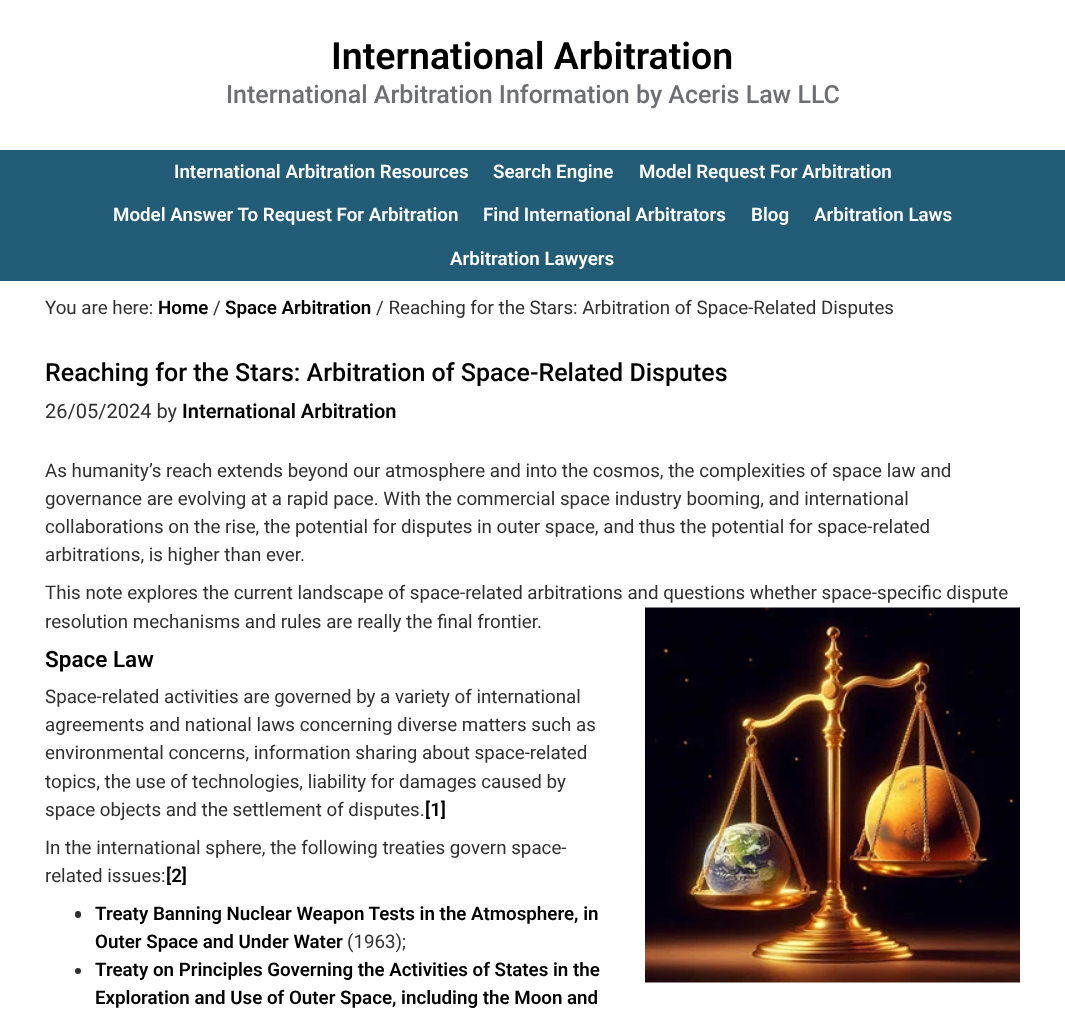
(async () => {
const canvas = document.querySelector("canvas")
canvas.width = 1065
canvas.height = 1018
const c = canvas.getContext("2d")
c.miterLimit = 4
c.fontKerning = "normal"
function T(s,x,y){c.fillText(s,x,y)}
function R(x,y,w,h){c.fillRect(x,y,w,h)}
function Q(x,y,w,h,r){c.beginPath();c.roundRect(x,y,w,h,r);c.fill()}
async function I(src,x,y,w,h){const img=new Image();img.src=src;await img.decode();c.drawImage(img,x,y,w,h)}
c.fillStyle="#fff"
R(0,0,1065,1018)
c.font="600 37.5px Roboto"
c.fillStyle="#000"
T("International Arbitration",331,69)
c.font="500 25px Roboto"
c.fillStyle="#6e6f73"
T("International Arbitration Information by Aceris Law LLC",226,103)
c.fillStyle="#235c77"
R(0,150,1065,131)
c.font="600 18.75px Roboto"
c.fillStyle="#fff"
T("International Arbitration Resources",174,178)
T("Search Engine",493,178)
T("Model Request For Arbitration",639,178)
T("Model Answer To Request For Arbitration",113,221)
T("Find International Arbitrators",483,221)
T("Blog",751,221)
T("Arbitration Laws",814,221)
T("Arbitration Lawyers",450,265)
c.font="18.75px Roboto"
c.fillStyle="#303030"
T("You are here:",45,314)
c.font="600 18.75px Roboto"
c.fillStyle="#000"
T("Home",158,314)
c.font="18.75px Roboto"
c.fillStyle="#303030"
T("/",213,314)
c.font="600 18.75px Roboto"
c.fillStyle="#000"
T("Space Arbitration",225,314)
c.font="18.75px Roboto"
c.fillStyle="#303030"
T("/ Reaching for the Stars: Arbitration of Space-Related Disputes",376,314)
c.font="500 25px Roboto"
c.fillStyle="#000"
T("Reaching for the Stars: Arbitration of Space-Related Disputes",45,381)
c.font="20px Roboto"
c.fillStyle="#303030"
T("26/05/2024 by",45,418)
c.font="600 20px Roboto"
c.fillStyle="#000"
T("International Arbitration",182,418)
c.font="18.75px Roboto"
c.fillStyle="#303030"
T("As humanity’s reach extends beyond our atmosphere and into the cosmos, the complexities of space law and",45,477)
T("governance are evolving at a rapid pace. With the commercial space industry booming, and international",45,505)
T("collaborations on the rise, the potential for disputes in outer space, and thus the potential for space-related",45,533)
T("arbitrations, is higher than ever.",45,561)
T("This note explores the current landscape of space-related arbitrations and questions whether space-specific dispute",45,599)
T("resolution mechanisms and rules are really the final frontier.",45,628)
await I("1.png",645,607,375,376)
c.font="600 22.5px Roboto"
c.fillStyle="#000"
T("Space Law",45,667)
c.font="18.75px Roboto"
c.fillStyle="#303030"
T("Space-related activities are governed by a variety of international",45,703)
T("agreements and national laws concerning diverse matters such as",45,731)
T("environmental concerns, information sharing about space-related",45,759)
T("topics, the use of technologies, liability for damages caused by",45,788)
T("space objects and the settlement of disputes.",45,816)
c.font="600 18.75px Roboto"
c.fillStyle="#000"
T("[1]",425,816)
c.font="18.75px Roboto"
c.fillStyle="#303030"
T("In the international sphere, the following treaties govern space-",45,854)
T("related issues:",45,882)
c.font="600 18.75px Roboto"
c.fillStyle="#000"
T("[2]",166,882)
c.fillStyle="#303030"
Q(75,911,6,7,3)
c.fillStyle="#000"
T("Treaty Banning Nuclear Weapon Tests in the Atmosphere, in",95,920)
T("Outer Space and Under Water",95,948)
c.font="18.75px Roboto"
c.fillStyle="#303030"
T("(1963);",347,948)
c.beginPath()
c.arc(78,971,3,0,7)
c.fill()
c.font="600 18.75px Roboto"
c.fillStyle="#000"
T("Treaty on Principles Governing the Activities of States in the",95,976)
T("Exploration and Use of Outer Space, including the Moon and",95,1004)
})()
